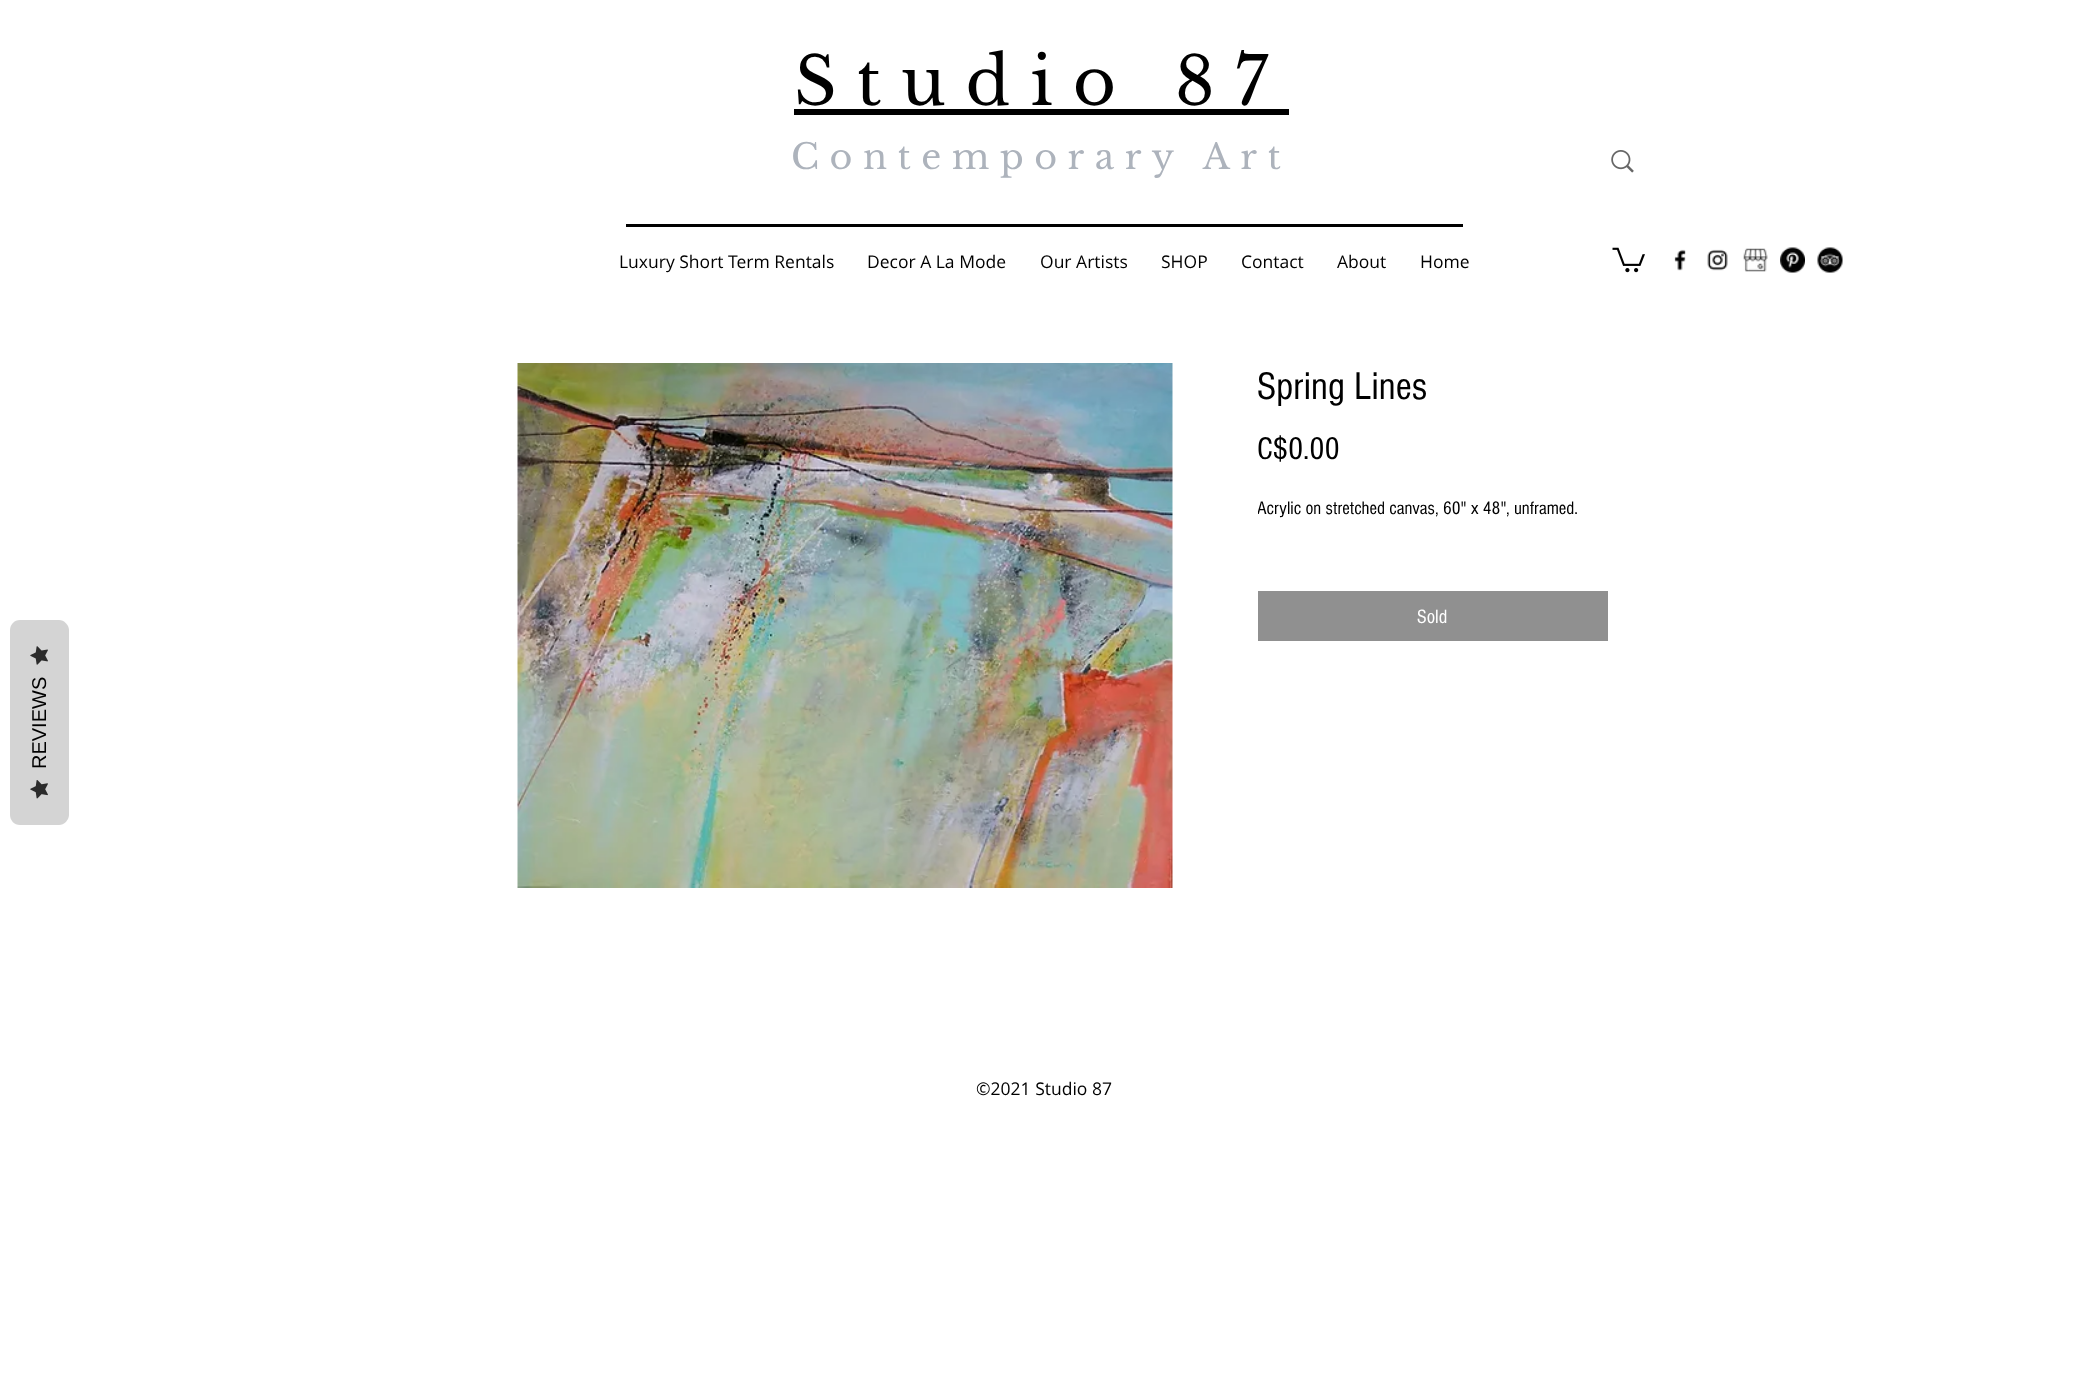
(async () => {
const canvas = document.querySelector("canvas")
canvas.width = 2088
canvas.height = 1386
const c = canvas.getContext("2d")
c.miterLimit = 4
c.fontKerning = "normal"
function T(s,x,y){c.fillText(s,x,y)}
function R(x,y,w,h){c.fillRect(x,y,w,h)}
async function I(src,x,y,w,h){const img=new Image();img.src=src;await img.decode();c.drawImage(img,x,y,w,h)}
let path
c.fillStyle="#fff"
R(0,0,2088,1386)
c.fillStyle="#d4d4d4"
path = new Path2D("M10 815v-185c0-5 4-10 10-10h39c5 0 10 5 10 10v185c0 5-5 10-10 10h-39c-6 0-10-5-10-10z")
c.fill(path)
await I("1.png",30,646,18,19)
c.font="20px Liberation Sans"
c.fillStyle="#000"
c.save()
c.translate(46,769)
c.rotate(-90 * Math.PI / 180)
c.fillText("REVIEWS",0,0)
c.restore()
await I("2.png",30,780,18,19)
c.letterSpacing="19.9px"
c.font="66.25px Libre Baskerville"
T("Studio 87",794,105)
R(794,109,495,6)
c.letterSpacing="10.5px"
c.font="35px Libre Baskerville"
c.fillStyle="#adb3bc"
T("Contemporary Art",791,169)
await I("3.png",1611,150,23,23)
c.fillStyle="#000"
R(626,224,837,3)
c.letterSpacing="0px"
c.font="17.5px Open Sans"
T("Luxury Short Term Rentals",619,268)
T("Decor A La Mode",867,268)
T("Our Artists",1040,268)
T("SHOP",1161,268)
T("Contact",1241,268)
T("About",1337,268)
T("Home",1420,268)
await I("4.png",1612,247,33,26)
await I("5.png",1674,249,12,22)
await I("6.png",1707,249,21,22)
await I("7.png",1743,248,25,24)
await I("8.png",1780,247,25,26)
await I("9.png",1817,247,26,26)
await I("10.png",517,363,656,525)
c.font="40px 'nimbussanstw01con'"
T("Spring Lines",1257,399)
c.font="32.5px 'nimbussanstw01con'"
T("C$0.00",1257,459)
c.save()
c.beginPath()
c.rect(1258,494,320,57)
c.clip()
c.font="18.75px 'nimbussanstw01con'"
T("Acrylic on stretched canvas, 60\" x 48\", unframed.",1257,514)
c.restore()
c.fillStyle="#909090"
R(1258,591,350,50)
c.font="20px 'nimbussanstw01con'"
c.fillStyle="#fff"
T("Sold",1417,623)
c.font="17.5px Open Sans"
c.fillStyle="#000"
T("©2021 Studio 87",976,1095)
})()
